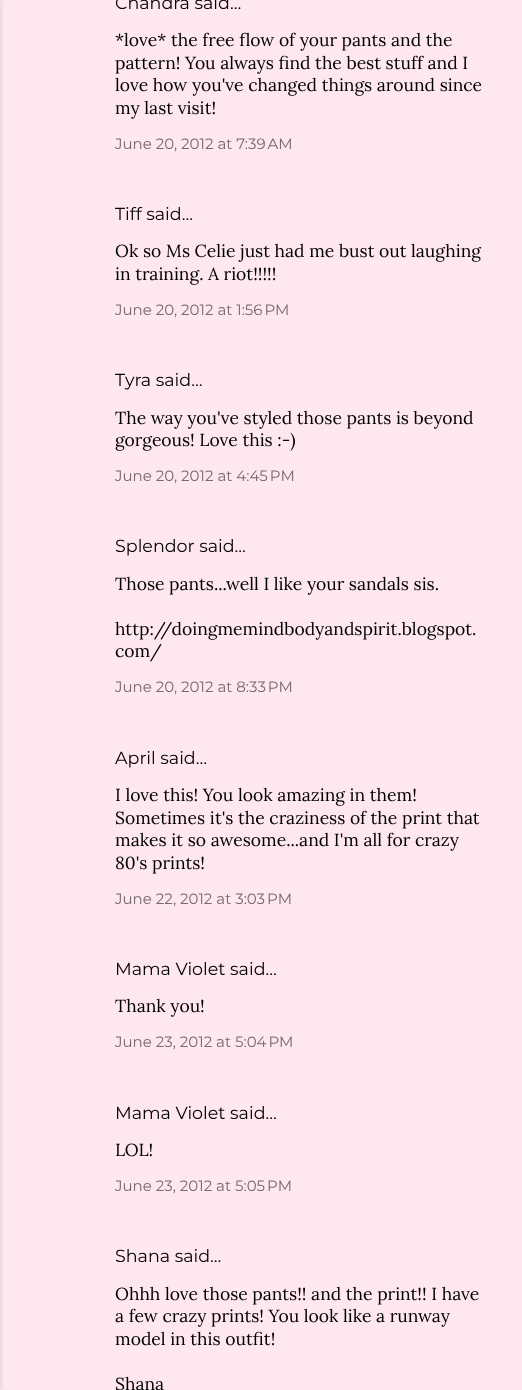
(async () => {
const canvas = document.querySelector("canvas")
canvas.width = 522
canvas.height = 1390
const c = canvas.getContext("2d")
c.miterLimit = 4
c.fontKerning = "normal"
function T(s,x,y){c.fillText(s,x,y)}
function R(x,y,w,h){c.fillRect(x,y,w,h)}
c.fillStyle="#fee7ee"
R(0,0,522,1390)
c.fillStyle="#0000001a"
c.filter="blur(2px)"
c.beginPath()
c.rect(-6,0,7,1390)
c.fill()
c.filter="none"
c.font="17.5px Montserrat"
c.fillStyle="#000"
T("Chandra said…",115,9)
c.font="17.5px Lora"
T("*love* the free flow of your pants and the",115,46)
T("pattern! You always find the best stuff and I",115,69)
T("love how you've changed things around since",115,91)
T("my last visit!",115,114)
c.font="15px Montserrat"
c.fillStyle="#756a6d"
T("June 20, 2012 at 7:39 AM",115,149)
c.font="17.5px Montserrat"
c.fillStyle="#000"
T("Tiff said…",115,220)
c.font="17.5px Lora"
T("Ok so Ms Celie just had me bust out laughing",115,257)
T("in training. A riot!!!!!",115,280)
c.font="15px Montserrat"
c.fillStyle="#756a6d"
T("June 20, 2012 at 1:56 PM",115,315)
c.font="17.5px Montserrat"
c.fillStyle="#000"
T("Tyra said…",115,386)
c.font="17.5px Lora"
T("The way you've styled those pants is beyond",115,424)
T("gorgeous! Love this :-)",115,446)
c.font="15px Montserrat"
c.fillStyle="#756a6d"
T("June 20, 2012 at 4:45 PM",115,481)
c.font="17.5px Montserrat"
c.fillStyle="#000"
T("Splendor said…",115,552)
c.font="17.5px Lora"
T("Those pants...well I like your sandals sis.",115,590)
T("http://doingmemindbodyandspirit.blogspot.",115,635)
T("com/",115,657)
c.font="15px Montserrat"
c.fillStyle="#756a6d"
T("June 20, 2012 at 8:33 PM",115,692)
c.font="17.5px Montserrat"
c.fillStyle="#000"
T("April said…",115,764)
c.font="17.5px Lora"
T("I love this! You look amazing in them!",115,801)
T("Sometimes it's the craziness of the print that",115,824)
T("makes it so awesome...and I'm all for crazy",115,846)
T("80's prints!",115,869)
c.font="15px Montserrat"
c.fillStyle="#756a6d"
T("June 22, 2012 at 3:03 PM",115,904)
c.font="17.5px Montserrat"
c.fillStyle="#000"
T("Mama Violet said…",115,975)
c.font="17.5px Lora"
T("Thank you!",115,1012)
c.font="15px Montserrat"
c.fillStyle="#756a6d"
T("June 23, 2012 at 5:04 PM",115,1047)
c.font="17.5px Montserrat"
c.fillStyle="#000"
T("Mama Violet said…",115,1119)
c.font="17.5px Lora"
T("LOL!",115,1156)
c.font="15px Montserrat"
c.fillStyle="#756a6d"
T("June 23, 2012 at 5:05 PM",115,1191)
c.font="17.5px Montserrat"
c.fillStyle="#000"
T("Shana said…",115,1262)
c.font="17.5px Lora"
T("Ohhh love those pants!! and the print!! I have",115,1300)
T("a few crazy prints! You look like a runway",115,1322)
T("model in this outfit!",115,1345)
T("Shana",115,1390)
})()
